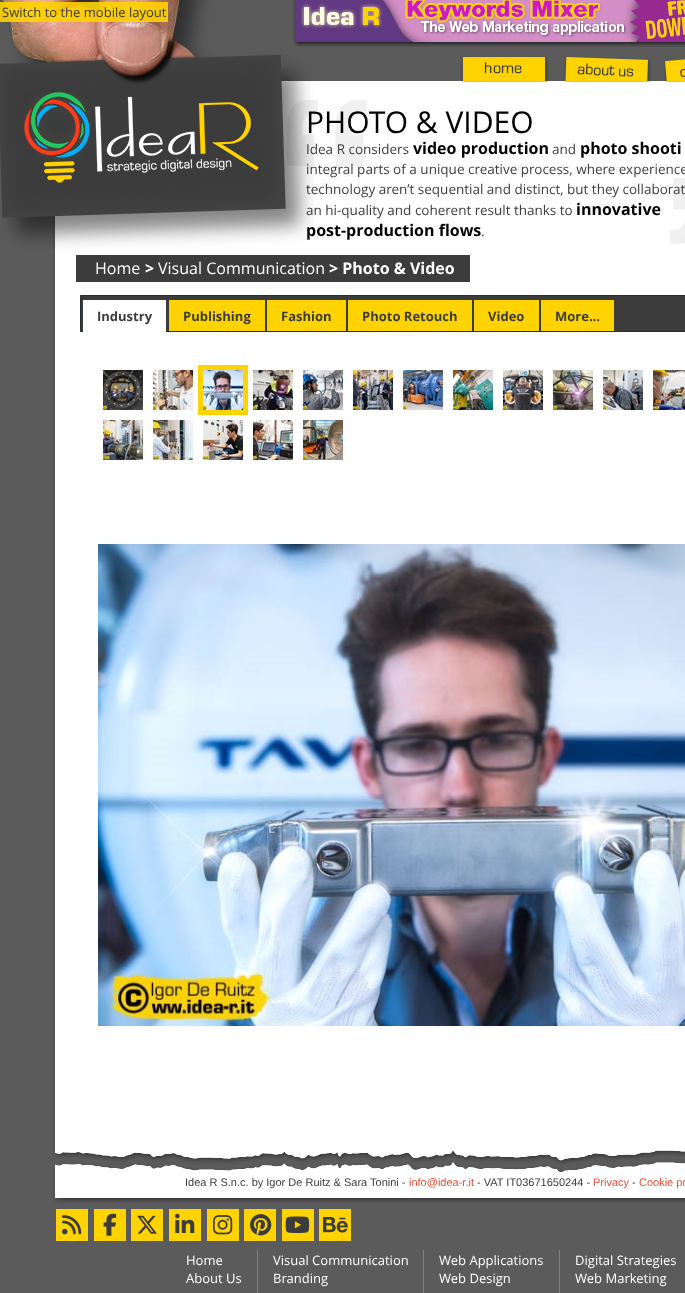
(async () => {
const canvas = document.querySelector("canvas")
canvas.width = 685
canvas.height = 1293
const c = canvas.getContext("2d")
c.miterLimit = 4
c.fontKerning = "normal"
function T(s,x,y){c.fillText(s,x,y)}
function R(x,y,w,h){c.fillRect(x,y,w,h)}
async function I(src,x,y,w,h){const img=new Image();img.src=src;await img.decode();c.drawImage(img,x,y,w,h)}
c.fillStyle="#5b5b5b"
R(0,0,685,1293)
await I("3.png",293,0,392,47)
c.fillStyle="#fff"
R(281,81,404,19)
await I("8.png",53,100,632,1049)
await I("7.png",286,100,399,144)
c.font="30px Open Sans"
c.fillStyle="#000"
T("PHOTO & VIDEO",306,133)
c.font="13.5px Open Sans"
c.fillStyle="#3c3c3c"
T("Idea R considers",306,154)
T("integral parts of a unique creative process, where experience",306,174)
T("technology aren’t sequential and distinct, but they collaborat",306,194)
T("an hi-quality and coherent result thanks to",306,215)
c.font="bold 16px Open Sans"
c.fillStyle="#000"
T("post-production flows",306,236)
await I("1.png",0,0,314,249)
c.fillStyle="#ffd300e6"
R(0,2,168,20)
c.font="13px Open Sans"
c.fillStyle="#3c3c3c"
T("Switch to the mobile layout",2,17)
await I("2.png",24,92,68,68)
await I("4.png",461,56,88,26)
await I("5.png",563,57,89,25)
await I("6.png",664,59,21,23)
c.font="bold 16px Open Sans"
c.fillStyle="#000"
T("video production",413,154)
c.font="13.5px Open Sans"
c.fillStyle="#3c3c3c"
T("and",552,154)
c.font="bold 16px Open Sans"
c.fillStyle="#000"
T("photo shooti",580,154)
T("innovative",576,215)
c.font="13.5px Open Sans"
c.fillStyle="#3c3c3c"
T(".",481,236)
R(76,255,394,27)
c.font="16px Open Sans"
c.fillStyle="#fff"
T("Home",95,274)
c.font="bold 16px Open Sans"
T(">",145,274)
c.font="16px Open Sans"
T("Visual Communication",158,274)
c.font="bold 16px Open Sans"
T("> Photo & Video",329,274)
c.fillStyle="#3c3c3c"
R(84,296,601,35)
R(80,295,4,37)
c.beginPath()
c.roundRect(80.5,295.5,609,36,3.5)
c.strokeStyle="#242e35"
c.stroke()
c.fillStyle="#fff"
R(83,300,83,32)
c.font="bold 13px Open Sans"
c.fillStyle="#3c3c3c"
T("Industry",97,321)
c.fillStyle="#ffd300"
R(169,300,96,31)
c.fillStyle="#3c3c3c"
T("Publishing",183,321)
c.fillStyle="#ffd300"
R(267,300,79,31)
c.fillStyle="#3c3c3c"
T("Fashion",281,321)
c.fillStyle="#ffd300"
R(348,300,124,31)
c.fillStyle="#3c3c3c"
T("Photo Retouch",362,321)
c.fillStyle="#ffd300"
R(474,300,65,31)
c.fillStyle="#3c3c3c"
T("Video",488,321)
c.fillStyle="#ffd300"
R(541,300,73,31)
c.fillStyle="#3c3c3c"
T("More...",555,321)
await I("9.png",103,370,40,40)
await I("10.png",153,370,40,40)
c.strokeStyle="#ffd300"
c.lineWidth=5
c.strokeRect(200.5,367.5,45,45)
await I("11.png",203,370,40,40)
await I("12.png",253,370,40,40)
await I("13.png",303,370,40,40)
await I("14.png",353,370,40,40)
await I("15.png",403,370,40,40)
await I("16.png",453,370,40,40)
await I("17.png",503,370,40,40)
await I("18.png",553,370,40,40)
await I("19.png",603,370,40,40)
await I("20.png",653,370,32,40)
await I("21.png",103,420,40,40)
await I("22.png",153,420,40,40)
await I("23.png",203,420,40,40)
await I("24.png",253,420,40,40)
await I("25.png",303,420,40,40)
await I("26.png",98,544,587,482)
await I("27.png",53,1149,632,54)
c.font="11px Liberation Sans"
T("Idea R S.n.c. by Igor De Ruitz & Sara Tonini -",185,1186)
c.fillStyle="#e45136"
T("info@idea-r.it",409,1186)
c.fillStyle="#3c3c3c"
T("- VAT IT03671650244 -",477,1186)
c.fillStyle="#e45136"
T("Privacy",593,1186)
c.fillStyle="#3c3c3c"
T("-",632,1186)
c.fillStyle="#e45136"
T("Cookie pr",639,1186)
c.fillStyle="#ffd300"
R(56,1209,32,32)
await I("28.png",62,1215,20,20)
R(94,1209,32,32)
await I("29.png",103,1213,14,23)
R(131,1209,32,32)
await I("30.png",137,1215,20,19)
R(169,1209,32,32)
await I("31.png",175,1213,20,20)
R(207,1209,32,32)
await I("32.png",213,1215,20,20)
R(244,1209,32,32)
await I("33.png",250,1214,22,22)
R(282,1209,32,32)
await I("34.png",285,1216,25,17)
R(319,1209,32,32)
await I("35.png",323,1217,25,16)
c.fillStyle="#808080"
R(257,1250,1,43)
c.font="13px Open Sans"
c.fillStyle="#fff"
T("Home",186,1265)
T("About Us",186,1283)
c.fillStyle="#808080"
R(423,1250,1,43)
c.fillStyle="#fff"
T("Visual Communication",273,1265)
T("Branding",273,1283)
c.fillStyle="#808080"
R(559,1250,1,43)
c.fillStyle="#fff"
T("Web Applications",439,1265)
T("Web Design",439,1283)
T("Digital Strategies",575,1265)
T("Web Marketing",575,1283)
})()
